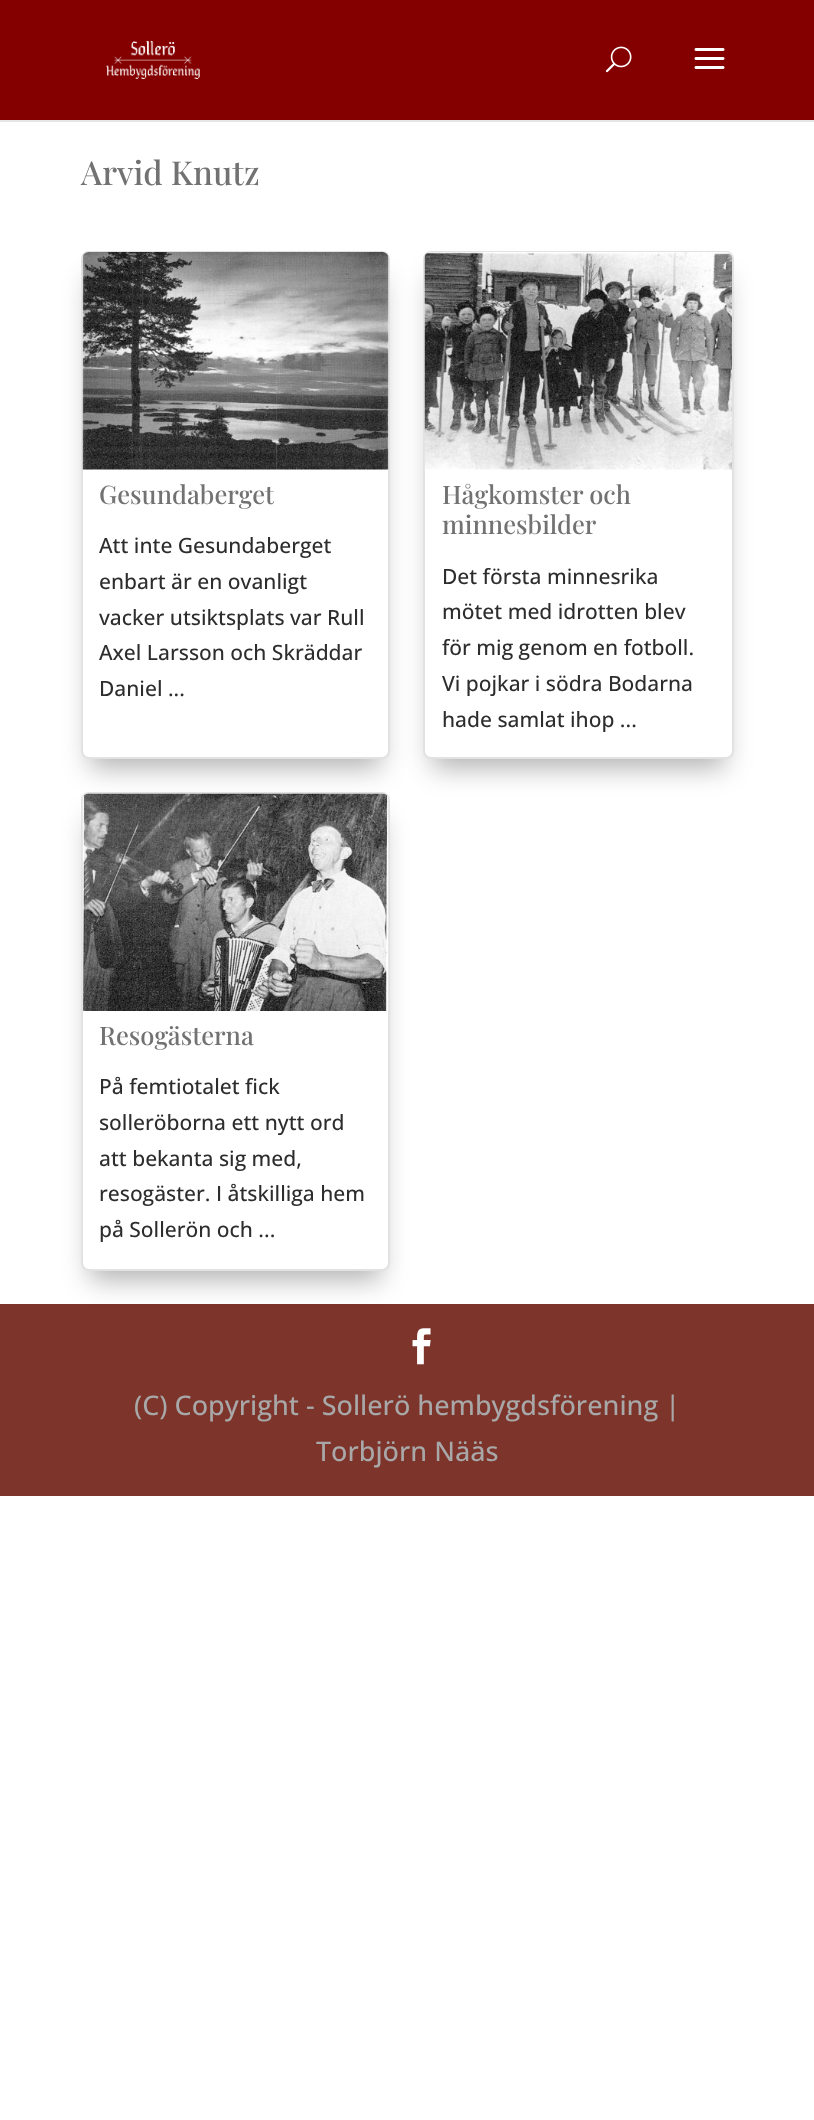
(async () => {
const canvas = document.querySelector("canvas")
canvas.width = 814
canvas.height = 2120
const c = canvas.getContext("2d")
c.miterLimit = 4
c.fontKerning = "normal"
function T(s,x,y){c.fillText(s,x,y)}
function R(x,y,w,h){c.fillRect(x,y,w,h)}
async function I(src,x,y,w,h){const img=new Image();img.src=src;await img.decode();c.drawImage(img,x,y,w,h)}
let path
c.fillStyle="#fff"
R(0,0,814,2120)
c.fillStyle="#e6e6e6"
path = new Path2D("M0 120v2h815v-120h-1v118z")
c.fill(path)
c.fillStyle="#840000"
R(0,0,814,120)
await I("1.png",106,40,94,40)
await I("2.png",605,46,27,27)
await I("3.png",694,48,31,21)
c.font="500 33px Playfair Display"
c.fillStyle="#727272"
T("Arvid Knutz",81,185)
c.fillStyle="#0000004d"
c.filter="blur(13.5px)"
c.beginPath()
c.rect(90,278,291,490)
c.fill()
c.filter="none"
c.fillStyle="#fff"
c.beginPath()
c.roundRect(82,252,307,506,7)
c.fill()
c.strokeStyle="#e2e2e2"
c.lineWidth=2
c.stroke()
await I("4.png",82,252,307,218)
c.font="500 25.5px Playfair Display"
c.fillStyle="#727272"
T("Gesundaberget",99,504)
c.font="500 21px Open Sans"
c.fillStyle="#2d2d2d"
T("Att inte Gesundaberget",99,553)
T("enbart är en ovanligt",99,589)
T("vacker utsiktsplats var Rull",99,625)
T("Axel Larsson och Skräddar",99,660)
T("Daniel ...",99,696)
c.fillStyle="#0000004d"
c.filter="blur(13.5px)"
c.beginPath()
c.rect(432,278,293,490)
c.fill()
c.filter="none"
c.fillStyle="#fff"
c.beginPath()
c.roundRect(424,252,309,506,7)
c.fill()
c.stroke()
await I("5.png",424,252,308,218)
c.font="500 25.5px Playfair Display"
c.fillStyle="#727272"
T("Hågkomster och",442,504)
T("minnesbilder",442,534)
c.font="500 21px Open Sans"
c.fillStyle="#2d2d2d"
T("Det första minnesrika",442,584)
T("mötet med idrotten blev",442,619)
T("för mig genom en fotboll.",442,655)
T("Vi pojkar i södra Bodarna",442,691)
T("hade samlat ihop ...",442,727)
c.fillStyle="#7d342b"
R(0,1304,814,192)
c.fillStyle="#0000004d"
c.filter="blur(13.5px)"
c.beginPath()
c.rect(90,819,291,461)
c.fill()
c.filter="none"
c.fillStyle="#fff"
c.beginPath()
c.roundRect(82,793,307,477,7)
c.fill()
c.stroke()
await I("6.png",82,793,307,218)
c.font="500 25.5px Playfair Display"
c.fillStyle="#727272"
T("Resogästerna",99,1045)
c.font="500 21px Open Sans"
c.fillStyle="#2d2d2d"
T("På femtiotalet fick",99,1094)
T("solleröborna ett nytt ord",99,1130)
T("att bekanta sig med,",99,1166)
T("resogäster. I åtskilliga hem",99,1201)
T("på Sollerön och ...",99,1237)
await I("7.png",412,1328,19,37)
c.font="500 27px Open Sans"
c.fillStyle="#a8a8a8"
T("(C) Copyright - Sollerö hembygdsförening |",134,1415)
T("Torbjörn Nääs",316,1461)
})()
